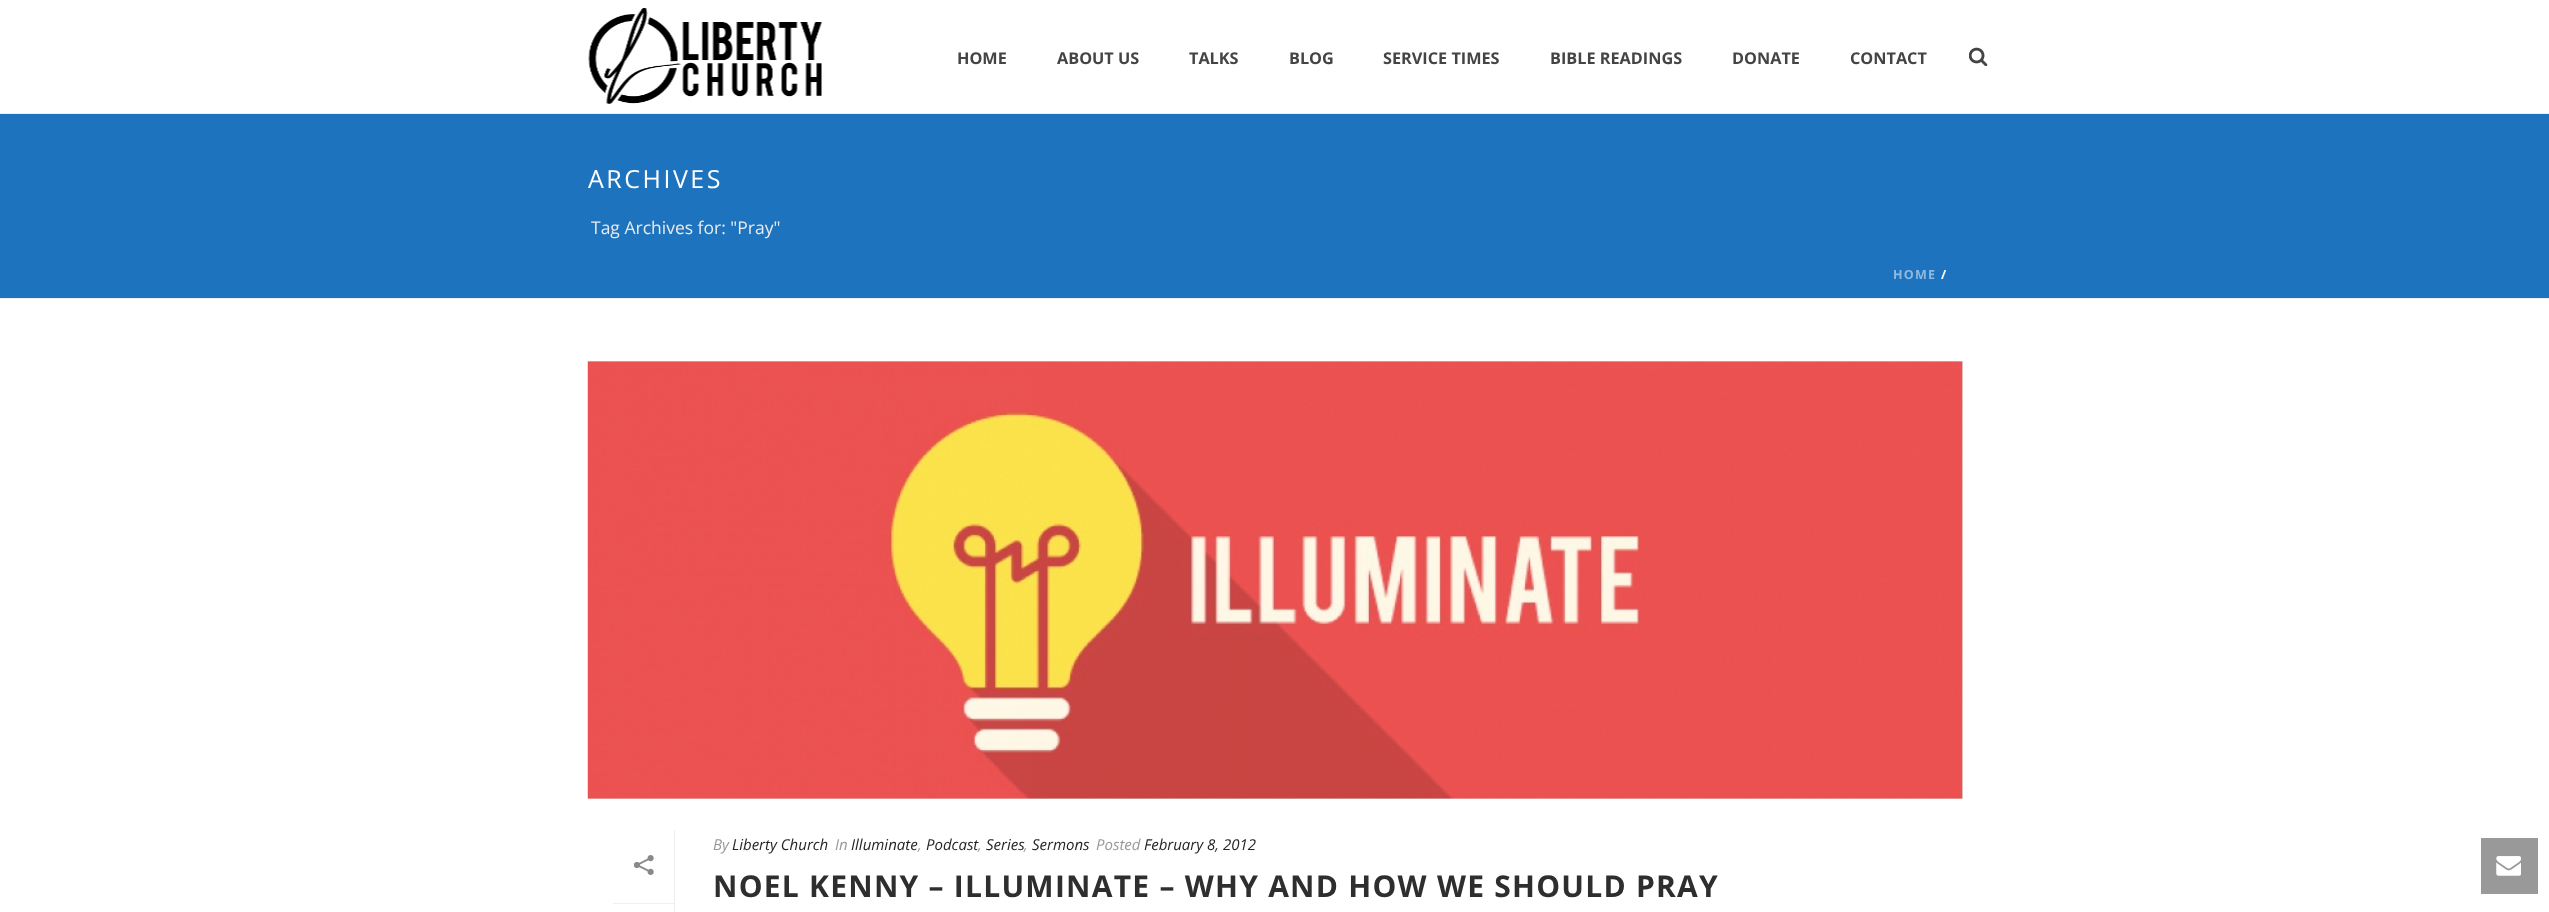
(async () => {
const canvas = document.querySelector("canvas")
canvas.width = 2549
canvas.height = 912
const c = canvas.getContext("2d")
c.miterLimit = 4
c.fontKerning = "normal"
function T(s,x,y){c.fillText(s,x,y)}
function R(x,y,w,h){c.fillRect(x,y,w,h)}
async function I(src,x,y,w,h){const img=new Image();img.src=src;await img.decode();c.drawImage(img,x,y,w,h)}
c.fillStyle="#fff"
R(0,0,2549,912)
c.fillStyle="#1e73be"
R(0,114,2549,184)
c.fillStyle="#ededed"
R(0,298,2549,1)
R(0,113,2549,1)
await I("1.png",588,8,234,96)
c.font="bold 16.25px Open Sans"
c.fillStyle="#444"
T("HOME",957,64)
T("ABOUT US",1057,64)
T("TALKS",1189,64)
T("BLOG",1289,64)
T("SERVICE TIMES",1383,64)
T("BIBLE READINGS",1550,64)
T("DONATE",1732,64)
T("CONTACT",1850,64)
await I("2.png",1969,47,19,19)
c.letterSpacing="2.5px"
c.font="25px Open Sans"
c.fillStyle="#fff"
T("ARCHIVES",588,188)
c.letterSpacing="0px"
c.font="17.5px Open Sans"
c.fillStyle="#eaeaea"
T("Tag Archives for: \"Pray\"",591,234)
c.letterSpacing="1.25px"
c.font="bold 12.5px Open Sans"
c.fillStyle="#8fb9df"
T("HOME",1893,279)
c.fillStyle="#fff"
T("/",1941,279)
c.fillStyle="#e0e0e0"
R(588,361,1375,438)
await I("3.png",587,361,1376,438)
c.fillStyle="#efefef"
R(674,830,1,82)
R(613,903,61,1)
await I("4.png",634,855,20,20)
c.letterSpacing="0px"
c.font="italic 15px Open Sans"
c.fillStyle="#999"
T("By",713,850)
c.fillStyle="#252525"
T("Liberty Church",732,850)
c.fillStyle="#999"
T("In",835,850)
c.fillStyle="#252525"
T("Illuminate",851,850)
c.fillStyle="#999"
T(",",918,850)
c.fillStyle="#252525"
T("Podcast",926,850)
T("Series",986,850)
T("Sermons",1032,850)
c.fillStyle="#999"
T(",",978,850)
T(",",1024,850)
T("Posted",1096,850)
c.fillStyle="#252525"
T("February 8, 2012",1144,850)
c.letterSpacing="1.25px"
c.font="bold 30px Open Sans"
c.fillStyle="#2e2e2e"
T("NOEL KENNY – ILLUMINATE – WHY AND HOW WE SHOULD PRAY",713,897)
c.fillStyle="#999"
R(2481,838,57,56)
await I("5.png",2496,856,25,20)
})()
